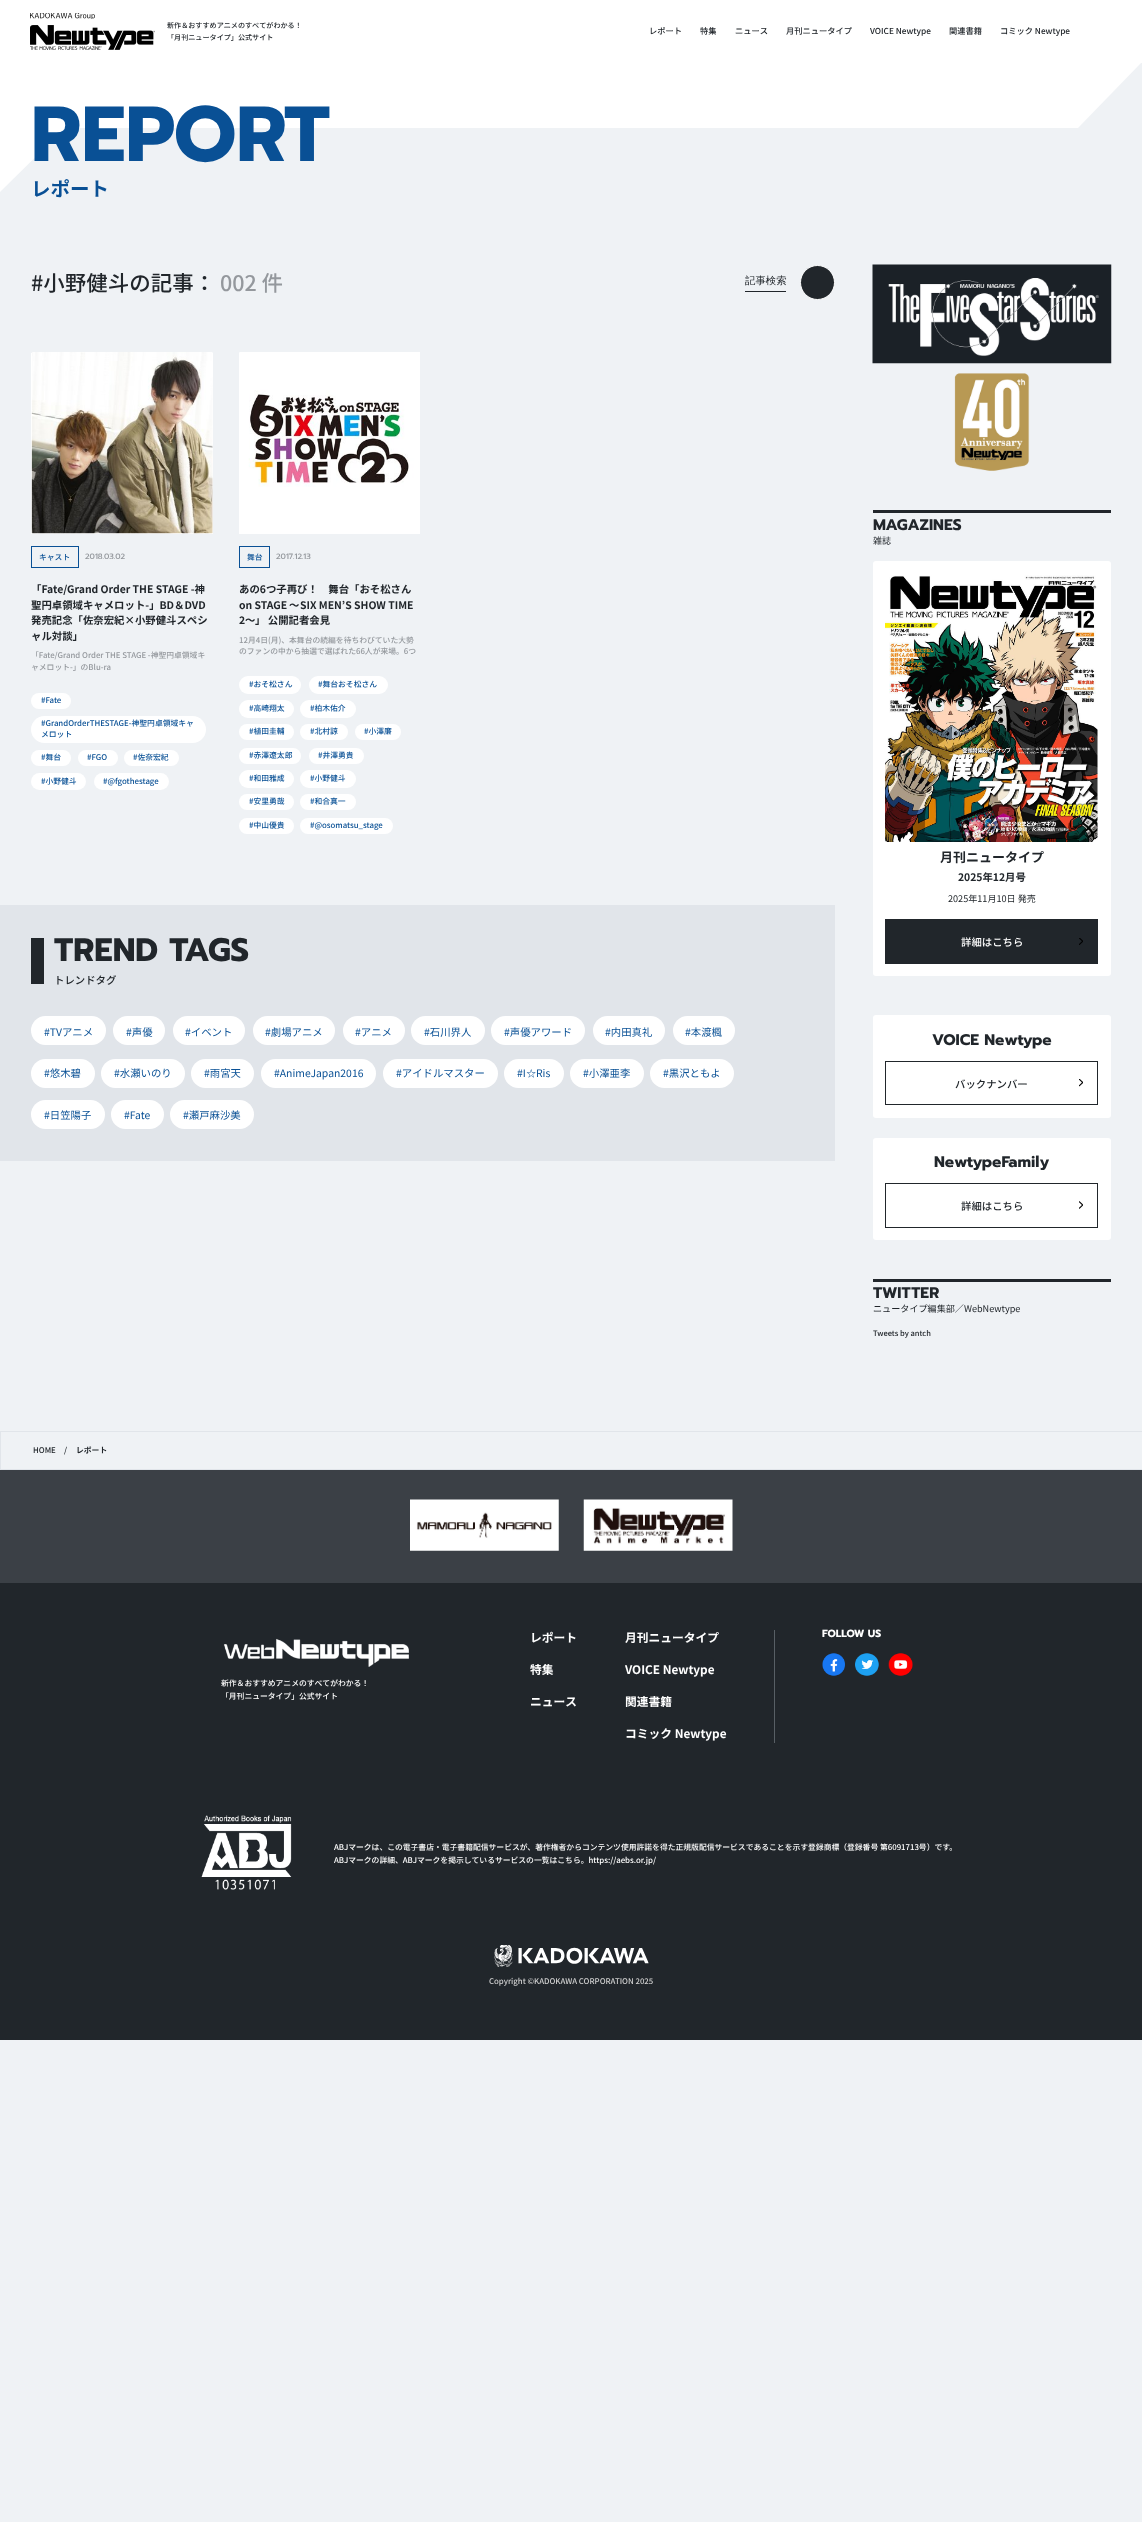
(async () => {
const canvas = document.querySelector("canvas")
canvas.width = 1142
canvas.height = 2522
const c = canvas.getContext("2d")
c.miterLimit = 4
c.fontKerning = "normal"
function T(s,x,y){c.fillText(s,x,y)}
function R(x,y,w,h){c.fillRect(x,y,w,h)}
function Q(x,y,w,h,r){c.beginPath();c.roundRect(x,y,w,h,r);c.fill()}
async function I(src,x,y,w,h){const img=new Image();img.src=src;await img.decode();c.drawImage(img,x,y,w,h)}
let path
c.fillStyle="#eff2f5"
R(0,0,1142,2522)
c.fillStyle="#fff"
R(0,63,1141,65)
c.fillStyle="#eff2f5"
path = new Path2D("M1142 62v66h-64z")
c.fill(path)
c.fillStyle="#fff"
R(0,0,1142,63)
await I("1.png",30,13,65,6)
await I("2.png",30,25,125,25)
c.font="500 7.1px Noto Sans JP"
c.fillStyle="#21262b"
T("新作＆おすすめアニメのすべてがわかる！",167,28)
T("「月刊ニュータイプ」公式サイト",167,40)
c.font="500 8.25px Noto Sans JP"
T("レポート",649,34)
T("特集",700,34)
T("ニュース",735,34)
T("月刊ニュータイプ",786,34)
T("VOICE Newtype",870,34)
T("関連書籍",949,34)
T("コミック Newtype",1000,34)
c.fillStyle="#fff"
path = new Path2D("M0 192v-64h65z")
c.fill(path)
c.font="bold 78px Prompt"
c.fillStyle="#095095"
T("REPORT",31,161)
c.font="bold 19.5px Noto Sans JP"
T("レポート",31,196)
c.font="500 21.5px Noto Sans JP"
c.fillStyle="#21262b"
T("#小野健斗の記事：",31,291)
c.fillStyle="#94989d"
T("002 件",220,291)
c.fillStyle="#21262b"
R(745,291,41,1)
c.font="500 10.4px WenQuanYi Zen Hei"
T("記事検索",745,284)
c.beginPath()
c.arc(817.5,282.5,17,0,7)
c.fill()
c.strokeStyle="#fff"
c.stroke()
c.fillStyle="#fff"
R(31,353,182,181)
await I("3.png",31,352,182,182)
c.strokeStyle="#095095"
c.strokeRect(31.5,546.5,47,21)
c.font="500 7.8px Noto Sans JP"
c.fillStyle="#095095"
T("キャスト",39,560)
c.font="500 7.8px Prompt"
c.fillStyle="#94989d"
T("2018.03.02",85,559)
c.font="bold 10.4px Noto Sans JP"
c.fillStyle="#21262b"
T("「Fate/Grand Order THE STAGE -神",31,593)
T("聖円卓領域キャメロット-」BD＆DVD",31,609)
T("発売記念「佐奈宏紀×小野健斗スペシ",31,624)
T("ャル対談」",31,640)
c.font="500 7.8px Noto Sans JP"
c.fillStyle="#94989d"
T("「Fate/Grand Order THE STAGE -神聖円卓領域キ",31,658)
T("ャメロット-」のBlu-ra",31,670)
c.fillStyle="#fff"
Q(31,693,40,16,8)
c.fillStyle="#095095"
T("#Fate",41,703)
c.fillStyle="#fff"
Q(31,716,175,27,13.5)
c.fillStyle="#095095"
T("#GrandOrderTHESTAGE-神聖円卓領域キャ",41,726)
T("メロット",41,737)
c.fillStyle="#fff"
Q(31,750,40,16,8)
c.fillStyle="#095095"
T("#舞台",41,760)
c.fillStyle="#fff"
Q(78,750,40,16,8)
c.fillStyle="#095095"
T("#FGO",87,760)
c.fillStyle="#fff"
Q(124,750,55,16,8)
c.fillStyle="#095095"
T("#佐奈宏紀",133,760)
c.fillStyle="#fff"
Q(31,773,55,17,8.5)
c.fillStyle="#095095"
T("#小野健斗",41,784)
c.fillStyle="#fff"
Q(94,773,75,17,8.5)
c.fillStyle="#095095"
T("#@fgothestage",103,784)
c.fillStyle="#fff"
R(239,353,181,181)
await I("4.png",239,352,181,135)
c.strokeRect(239.5,546.5,30,21)
c.fillStyle="#095095"
T("舞台",247,560)
c.font="500 7.8px Prompt"
c.fillStyle="#94989d"
T("2017.12.13",276,559)
c.font="bold 10.4px Noto Sans JP"
c.fillStyle="#21262b"
T("あの6つ子再び！　舞台「おそ松さん",239,593)
T("on STAGE",239,609)
c.font="bold 10.4px 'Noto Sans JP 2'"
T("～",289,609)
c.font="bold 10.4px Noto Sans JP"
T("SIX MEN’S SHOW TIME",300,609)
T("2",239,624)
c.font="bold 10.4px 'Noto Sans JP 2'"
T("～",245,624)
c.font="bold 10.4px Noto Sans JP"
T("」 公開記者会見",255,624)
c.font="500 7.8px Noto Sans JP"
c.fillStyle="#94989d"
T("12月4日(月)、本舞台の続編を待ちわびていた大勢",239,643)
T("のファンの中から抽選で選ばれた66人が来場。6つ",239,654)
c.fillStyle="#fff"
Q(239,676,62,18,9)
c.fillStyle="#095095"
T("#おそ松さん",249,687)
c.fillStyle="#fff"
Q(309,676,79,18,9)
c.fillStyle="#095095"
T("#舞台おそ松さん",318,687)
c.fillStyle="#fff"
Q(239,700,55,18,9)
c.fillStyle="#095095"
T("#高崎翔太",249,711)
c.fillStyle="#fff"
Q(300,700,56,18,9)
c.fillStyle="#095095"
T("#柏木佑介",310,711)
c.fillStyle="#fff"
Q(239,724,55,16,8)
c.fillStyle="#095095"
T("#植田圭輔",249,734)
c.fillStyle="#fff"
Q(300,724,48,16,8)
c.fillStyle="#095095"
T("#北村諒",310,734)
c.fillStyle="#fff"
Q(355,724,46,16,8)
c.fillStyle="#095095"
T("#小澤廉",364,734)
c.fillStyle="#fff"
Q(239,748,62,16,8)
c.fillStyle="#095095"
T("#赤澤遼太郎",249,758)
c.fillStyle="#fff"
Q(309,748,55,16,8)
c.fillStyle="#095095"
T("#井澤勇貴",318,758)
c.fillStyle="#fff"
Q(239,770,55,18,9)
c.fillStyle="#095095"
T("#和田雅成",249,781)
c.fillStyle="#fff"
Q(300,770,56,18,9)
c.fillStyle="#095095"
T("#小野健斗",310,781)
c.fillStyle="#fff"
Q(239,794,55,16,8)
c.fillStyle="#095095"
T("#安里勇哉",249,804)
c.fillStyle="#fff"
Q(300,794,56,16,8)
c.fillStyle="#095095"
T("#和合真一",310,804)
c.fillStyle="#fff"
Q(239,818,55,16,8)
c.fillStyle="#095095"
T("#中山優貴",249,828)
c.fillStyle="#fff"
Q(300,818,93,16,8)
c.fillStyle="#095095"
T("#@osomatsu_stage",310,828)
c.fillStyle="#e1e5ea"
R(0,905,835,256)
c.fillStyle="#21262b"
R(31,938,13,46)
c.font="bold 32.5px Prompt"
T("TREND TAGS",54,961)
c.font="500 10.4px Noto Sans JP"
T("トレンドタグ",54,984)
c.fillStyle="#fff"
Q(31,1016,75,29,14.5)
c.font="10.4px Noto Sans JP"
c.fillStyle="#095095"
T("#TVアニメ",44,1036)
c.fillStyle="#fff"
Q(113,1016,52,29,14.5)
c.fillStyle="#095095"
T("#声優",126,1036)
c.fillStyle="#fff"
Q(173,1016,72,29,14.5)
c.fillStyle="#095095"
T("#イベント",185,1036)
c.fillStyle="#fff"
Q(253,1016,82,29,14.5)
c.fillStyle="#095095"
T("#劇場アニメ",265,1036)
c.fillStyle="#fff"
Q(343,1016,62,29,14.5)
c.fillStyle="#095095"
T("#アニメ",355,1036)
c.fillStyle="#fff"
Q(411,1016,74,29,14.5)
c.fillStyle="#095095"
T("#石川界人",424,1036)
c.fillStyle="#fff"
Q(491,1016,94,29,14.5)
c.fillStyle="#095095"
T("#声優アワード",504,1036)
c.fillStyle="#fff"
Q(593,1016,72,29,14.5)
c.fillStyle="#095095"
T("#内田真礼",605,1036)
c.fillStyle="#fff"
Q(673,1016,62,29,14.5)
c.fillStyle="#095095"
T("#本渡楓",685,1036)
c.fillStyle="#fff"
Q(31,1059,64,29,14.5)
c.fillStyle="#095095"
T("#悠木碧",44,1077)
c.fillStyle="#fff"
Q(101,1059,84,29,14.5)
c.fillStyle="#095095"
T("#水瀬いのり",114,1077)
c.fillStyle="#fff"
Q(191,1059,63,29,14.5)
c.fillStyle="#095095"
T("#雨宮天",204,1077)
c.fillStyle="#fff"
Q(261,1059,115,29,14.5)
c.fillStyle="#095095"
T("#AnimeJapan2016",274,1077)
c.fillStyle="#fff"
Q(383,1059,115,29,14.5)
c.fillStyle="#095095"
T("#アイドルマスター",396,1077)
c.fillStyle="#fff"
Q(504,1059,60,29,14.5)
c.fillStyle="#095095"
T("#I",517,1077)
c.font="500 10.4px WenQuanYi Zen Hei"
T("☆",526,1077)
c.font="10.4px Noto Sans JP"
T("Ris",536,1077)
c.fillStyle="#fff"
Q(570,1059,74,29,14.5)
c.fillStyle="#095095"
T("#小澤亜李",583,1077)
c.fillStyle="#fff"
Q(650,1059,84,29,14.5)
c.fillStyle="#095095"
T("#黒沢ともよ",663,1077)
c.fillStyle="#fff"
Q(31,1100,74,29,14.5)
c.fillStyle="#095095"
T("#日笠陽子",44,1119)
c.fillStyle="#fff"
Q(111,1100,53,29,14.5)
c.fillStyle="#095095"
T("#Fate",124,1119)
c.fillStyle="#fff"
Q(170,1100,84,29,14.5)
c.fillStyle="#095095"
T("#瀬戸麻沙美",183,1119)
await I("5.png",872,264,240,100)
await I("6.png",954,373,76,98)
c.fillStyle="#21262b"
R(873,510,238,3)
c.font="bold 15.5px Prompt"
T("MAGAZINES",873,530)
c.font="9.1px Noto Sans JP"
T("雑誌",873,544)
c.fillStyle="#fff"
Q(873,561,238,415,3)
await I("7.png",885,575,213,267)
c.font="bold 13px Noto Sans JP"
c.fillStyle="#21262b"
T("月刊ニュータイプ",940,862)
c.font="bold 10.4px Noto Sans JP"
T("2025年12月号",958,881)
c.font="9.1px Noto Sans JP"
T("2025年11月10日 発売",948,902)
R(885,919,213,45)
c.font="500 10.4px Noto Sans JP"
c.fillStyle="#fff"
T("詳細はこちら",961,946)
await I("8.png",1079,938,4,7)
Q(873,1015,238,103,3)
c.font="bold 15.5px Prompt"
c.fillStyle="#21262b"
T("VOICE Newtype",932,1045)
c.strokeStyle="#21262b"
c.strokeRect(885.5,1061.5,212,43)
c.font="500 10.4px Noto Sans JP"
T("バックナンバー",955,1088)
await I("9.png",1079,1079,4,8)
c.fillStyle="#fff"
Q(873,1138,238,102,3)
c.font="bold 15.5px Prompt"
c.fillStyle="#21262b"
T("NewtypeFamily",934,1167)
c.strokeRect(885.5,1183.5,212,44)
c.font="500 10.4px Noto Sans JP"
T("詳細はこちら",961,1210)
await I("10.png",1079,1201,4,8)
R(873,1279,238,3)
c.font="bold 15.5px Prompt"
T("TWITTER",873,1298)
c.font="9.1px Noto Sans JP"
T("ニュータイプ編集部／WebNewtype",873,1312)
c.font="500 7.5px Noto Sans JP"
T("Tweets by antch",873,1336)
c.strokeStyle="#e1e5ea"
c.strokeRect(.5,1431.5,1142,38)
c.font="500 7.8px Noto Sans JP"
T("HOME",33,1453)
T("/",64,1453)
c.font="bold 7.8px Noto Sans JP"
T("レポート",76,1453)
R(0,1583,1142,457)
c.fillStyle="#3b4046"
R(0,1470,1142,113)
await I("11.png",410,1499,149,52)
await I("12.png",583,1499,150,52)
await I("13.png",223,1638,186,29)
c.font="500 7.8px Noto Sans JP"
c.fillStyle="#fff"
T("新作＆おすすめアニメのすべてがわかる！",221,1686)
T("「月刊ニュータイプ」公式サイト",221,1699)
c.fillStyle="#585f65"
R(774,1630,1,113)
c.font="bold 11.75px Noto Sans JP"
c.fillStyle="#fff"
T("レポート",530,1642)
T("特集",530,1674)
T("ニュース",530,1706)
T("月刊ニュータイプ",625,1642)
T("VOICE Newtype",625,1674)
T("関連書籍",625,1706)
T("コミック Newtype",625,1738)
c.font="bold 10.4px Prompt"
T("FOLLOW US",822,1637)
await I("14.png",822,1653,23,23)
await I("15.png",855,1653,24,23)
await I("16.png",888,1653,25,23)
await I("17.png",201,1815,91,75)
c.font="500 7.8px Noto Sans JP"
T("ABJマークは、この電子書店・電子書籍配信サービスが、著作権者からコンテンツ使用許諾を得た正規版配信サービスであることを示す登録商標（登録番号 第6091713号）です。",334,1850)
T("ABJマークの詳細、ABJマークを掲示しているサービスの一覧はこちら。https://aebs.or.jp/",334,1863)
await I("18.png",494,1945,155,22)
c.fillStyle="#cfcfcf"
T("Copyright ©KADOKAWA CORPORATION 2025",489,1984)
})()
